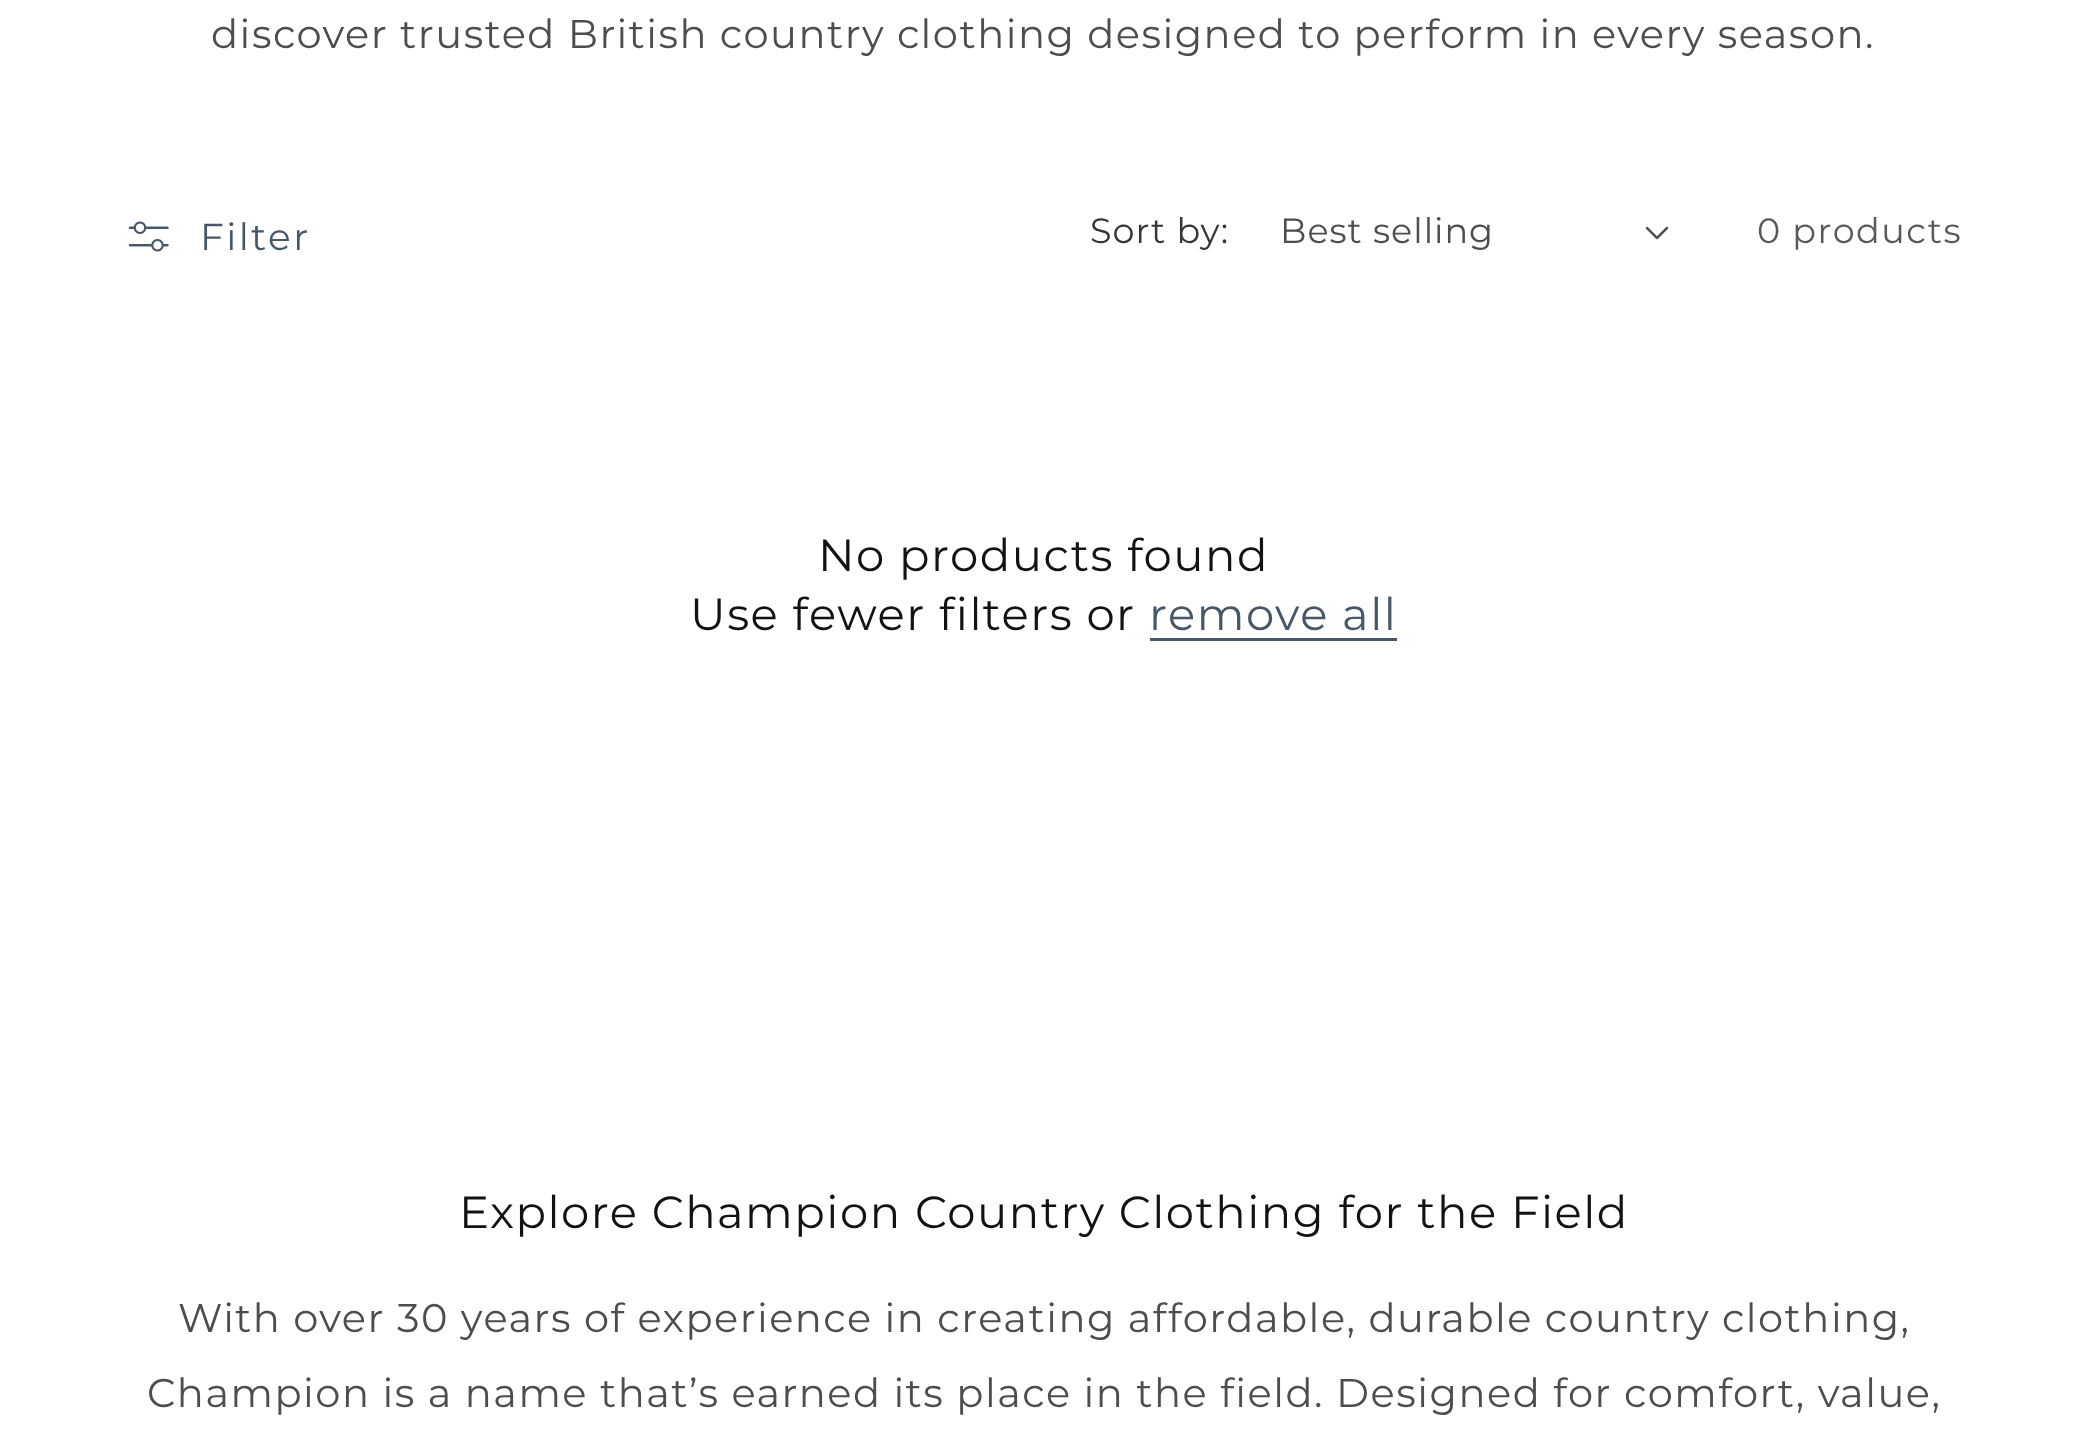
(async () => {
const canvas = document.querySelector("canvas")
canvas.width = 2085
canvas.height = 1451
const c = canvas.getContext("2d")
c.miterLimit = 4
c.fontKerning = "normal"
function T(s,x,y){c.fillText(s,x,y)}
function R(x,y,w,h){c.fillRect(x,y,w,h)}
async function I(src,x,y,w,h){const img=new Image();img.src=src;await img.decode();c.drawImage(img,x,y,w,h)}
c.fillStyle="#fff"
R(0,0,2085,1451)
c.letterSpacing="1.5px"
c.wordSpacing="-0.25px"
c.font="40px Montserrat"
c.fillStyle="#4d4d4d"
T("discover trusted British country clothing designed to perform in every season.",211,48)
await I("1.png",128,221,41,31)
c.letterSpacing="2.5px"
c.wordSpacing="0px"
c.font="37.5px Montserrat"
c.fillStyle="#475768"
T("Filter",200,250)
c.letterSpacing="1px"
c.font="35px Montserrat"
c.fillStyle="#363636"
T("Sort by:",1090,243)
c.fillStyle="#4d4d4d"
T("Best selling",1280,243)
await I("2.png",1645,226,24,14)
c.letterSpacing="1.5px"
c.fillStyle="#595959"
T("0 products",1757,243)
c.font="45px Montserrat"
c.fillStyle="#121212"
T("No products found",818,571)
T("Use fewer filters or",690,630)
c.fillStyle="#475768"
T("remove all",1149,630)
R(1150,638,247,3)
c.fillStyle="#121212"
T("Explore Champion Country Clothing for the Field",459,1228)
c.wordSpacing="-0.1px"
c.font="40px Montserrat"
c.fillStyle="#4d4d4d"
T("With over 30 years of experience in creating affordable, durable country clothing,",178,1332)
c.wordSpacing="0px"
T("Champion is a name that’s earned its place in the field. Designed for comfort, value,",147,1407)
})()
